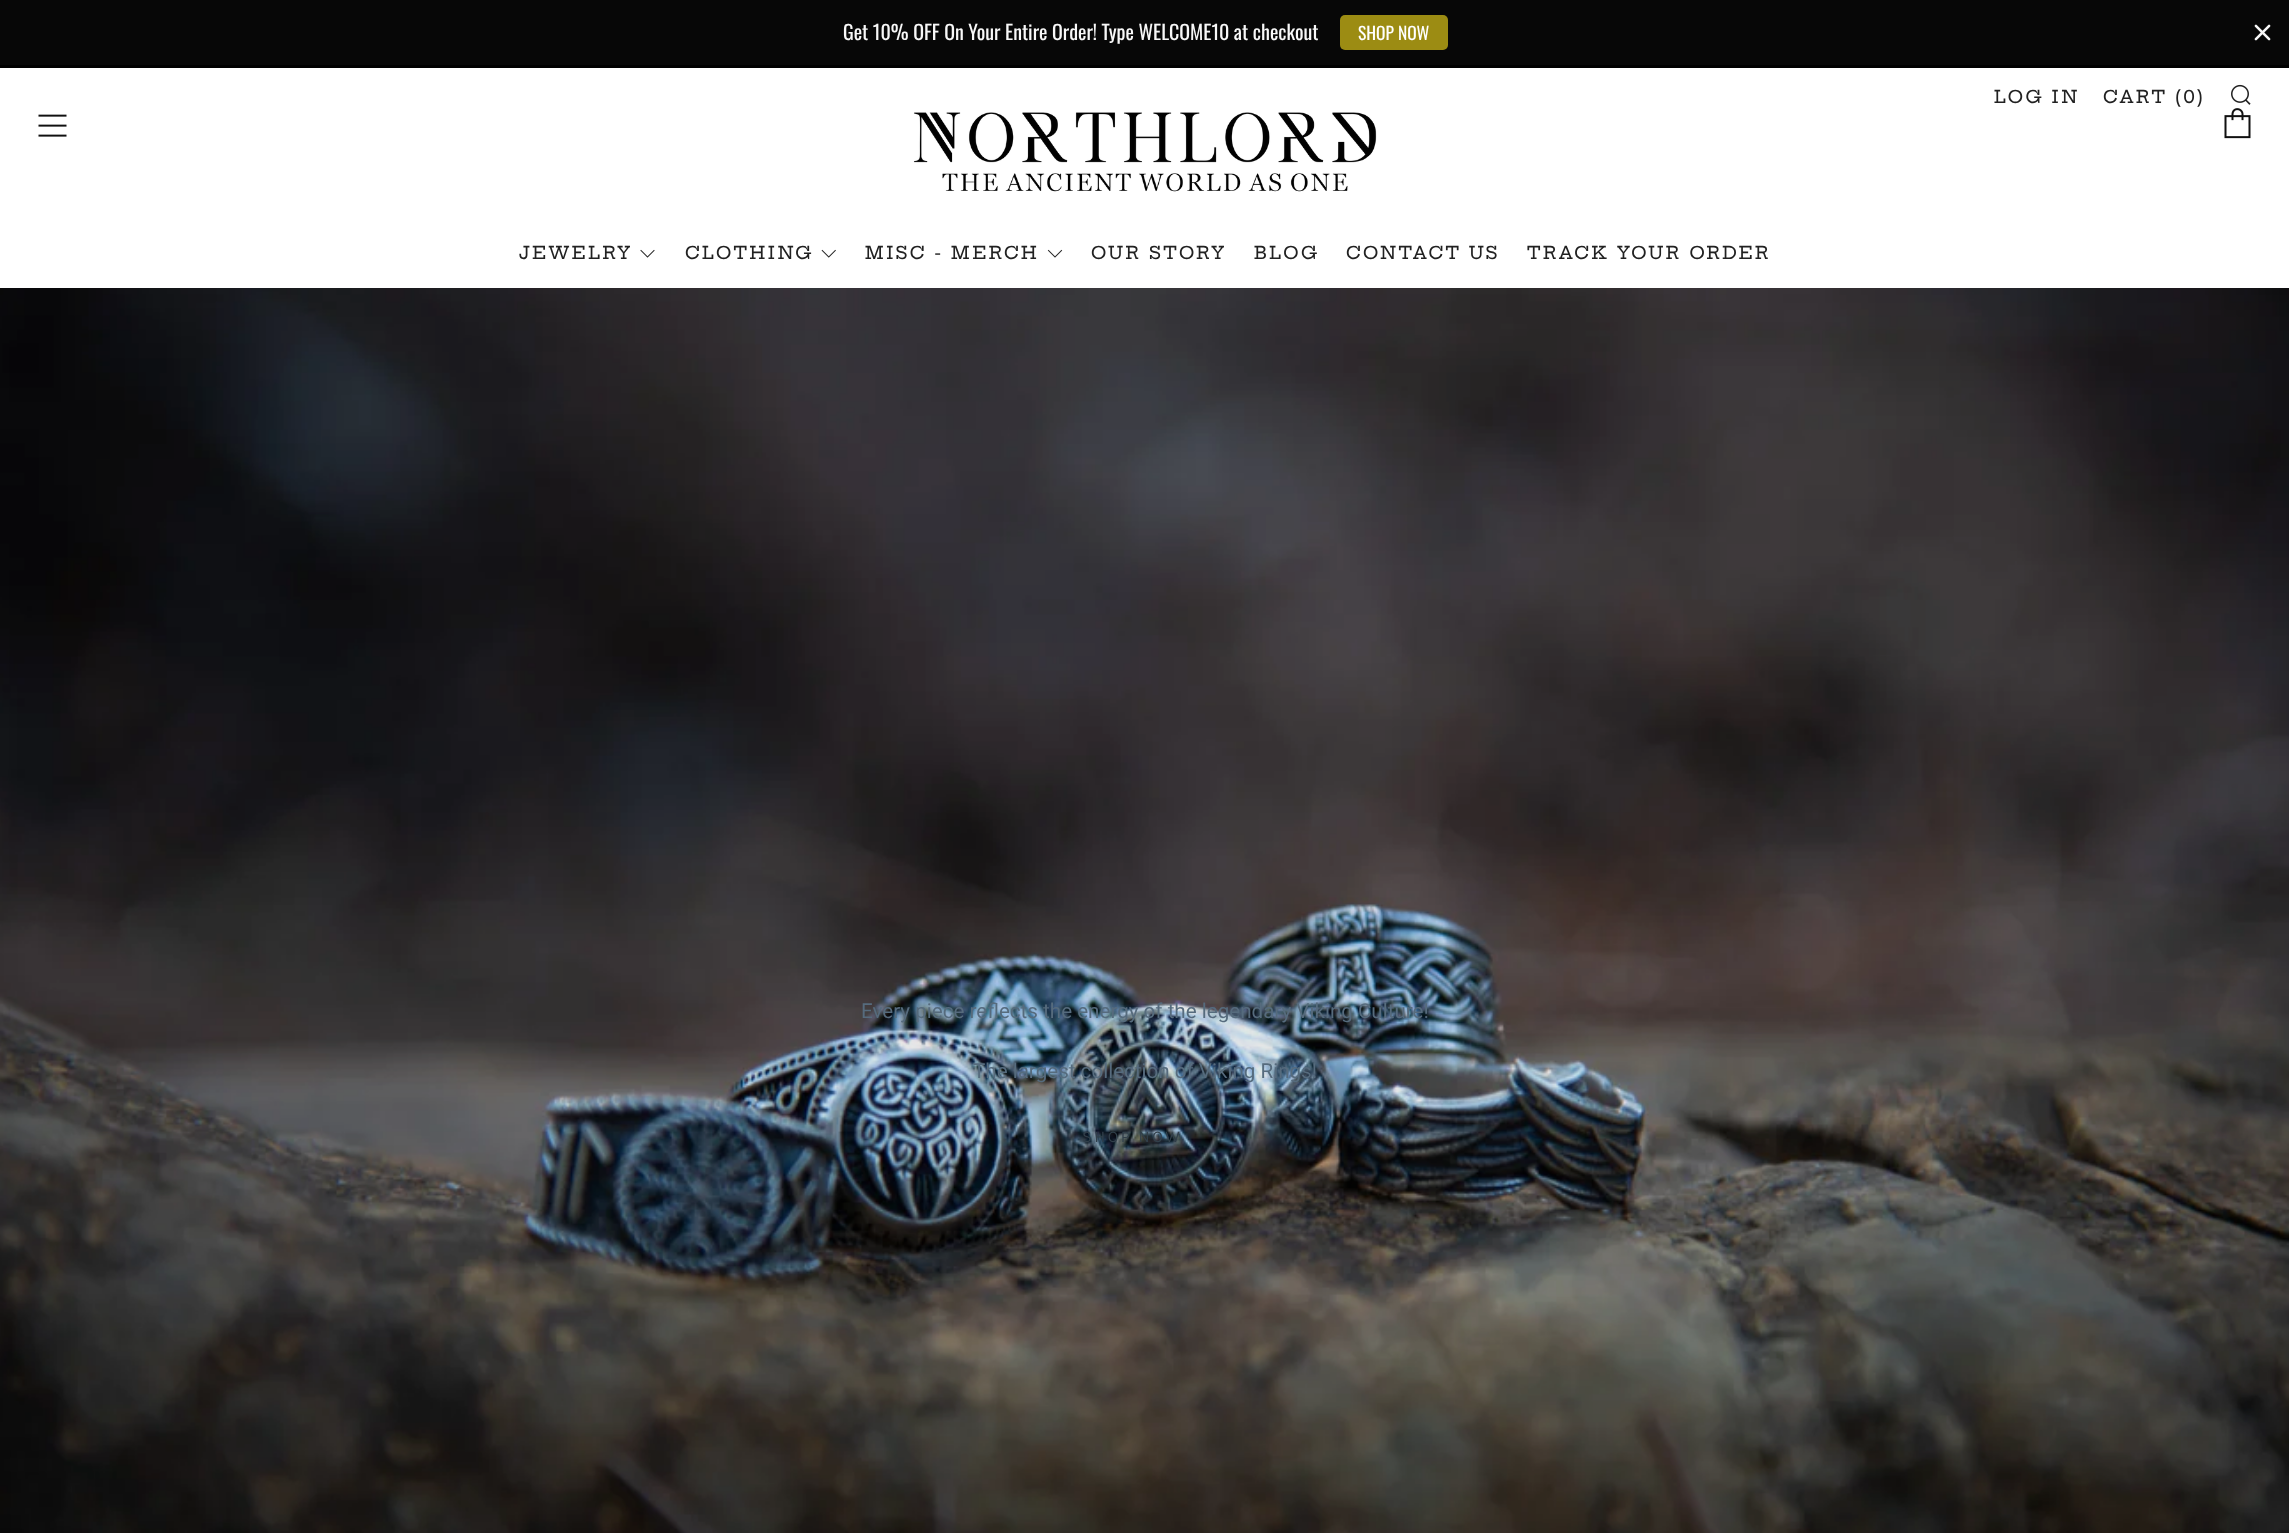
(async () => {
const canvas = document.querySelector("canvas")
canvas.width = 2289
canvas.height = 1533
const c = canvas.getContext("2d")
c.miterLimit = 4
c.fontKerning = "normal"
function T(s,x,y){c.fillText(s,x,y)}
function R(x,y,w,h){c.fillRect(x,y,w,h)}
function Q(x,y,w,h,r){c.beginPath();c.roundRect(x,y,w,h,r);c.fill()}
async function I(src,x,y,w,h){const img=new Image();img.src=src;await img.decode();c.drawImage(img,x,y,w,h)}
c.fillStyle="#fff"
R(0,0,2289,1533)
c.fillStyle="#070707"
R(0,0,2289,65)
c.font="20px Oswald"
c.fillStyle="#f8f8f8"
T("Get 10% OFF On Your Entire Order! Type WELCOME10 at checkout",843,40)
c.fillStyle="#9c8c13"
Q(1340,15,108,35,5)
c.font="17.5px Oswald"
c.fillStyle="#fff"
T("SHOP NOW",1358,40)
await I("1.png",2254,24,17,17)
c.fillStyle="#000"
R(0,65,2289,3)
c.letterSpacing="2.5px"
c.font="500 17.5px Hepta Slab"
c.fillStyle="#212121"
T("LOG IN",1994,103)
T("CART (0",2103,103)
T(")",2197,103)
await I("2.png",2231,84,20,21)
T("JEWELRY",519,259)
await I("3.png",640,249,15,9)
T("CLOTHING",685,259)
await I("4.png",821,249,15,9)
T("MISC - MERCH",865,259)
await I("5.png",1047,249,16,9)
T("OUR STORY",1091,259)
T("BLOG",1254,259)
T("CONTACT US",1346,259)
T("TRACK YOUR ORDER",1527,259)
await I("6.png",2224,108,27,31)
await I("7.png",38,114,29,23)
await I("8.png",913,112,464,80)
await I("9.png",0,288,2289,1245)
c.letterSpacing="0px"
c.font="20.6px Roboto"
c.fillStyle="#566b7d"
T("Every piece reflects the energy of the legendary Viking Culture!",861,1018)
T("The largest collection of Viking Rings!",973,1078)
c.letterSpacing="2.5px"
c.font="16.25px Karla"
c.fillStyle="#313f4a"
T("SHOP NOW",1082,1142)
})()
